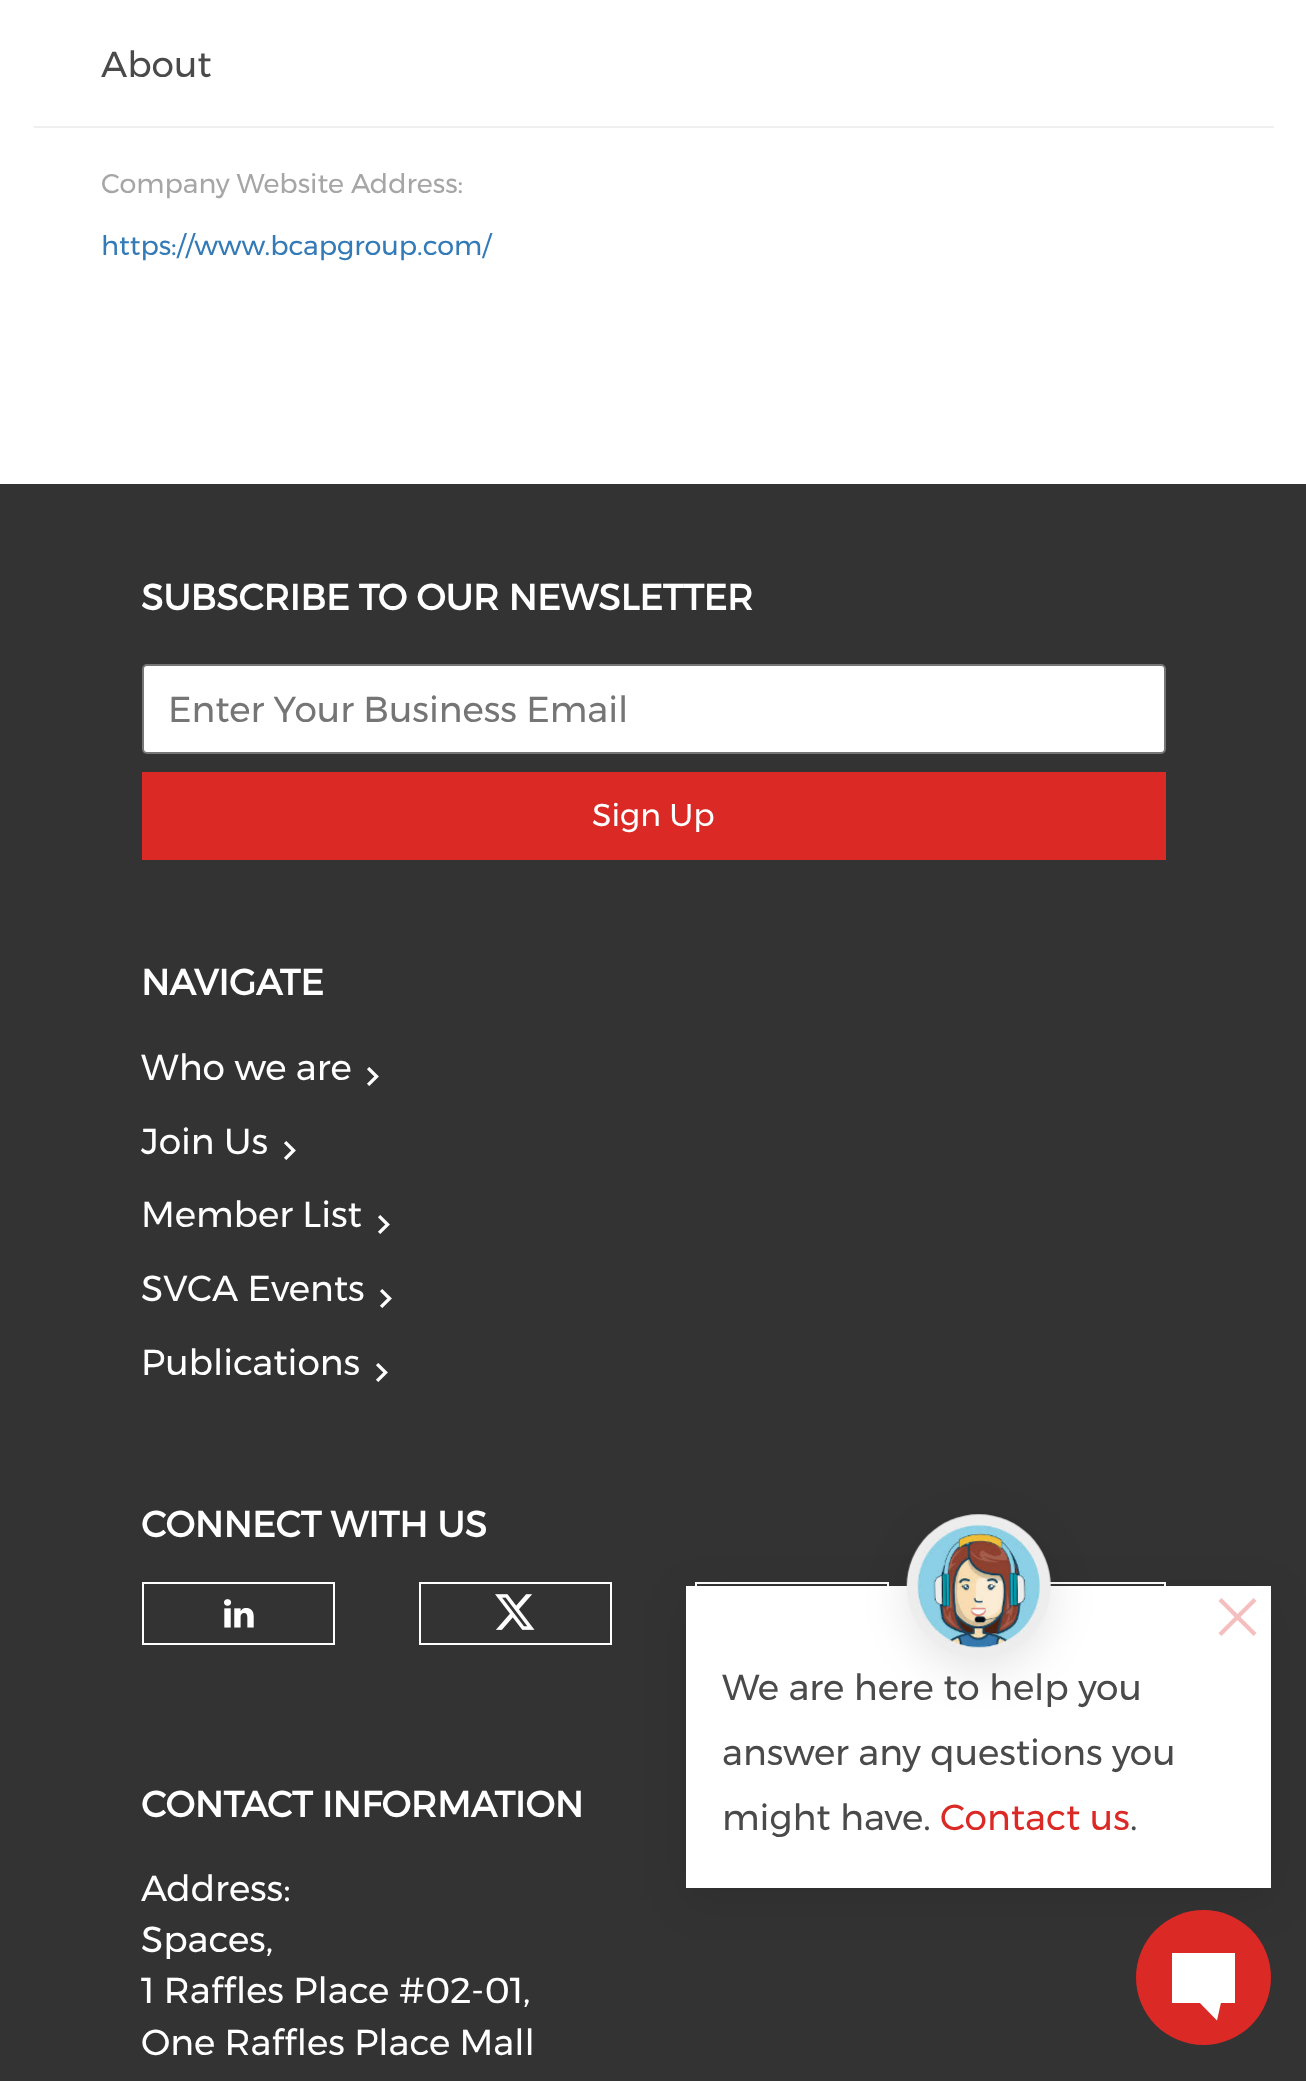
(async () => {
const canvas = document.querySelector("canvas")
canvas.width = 1306
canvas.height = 2081
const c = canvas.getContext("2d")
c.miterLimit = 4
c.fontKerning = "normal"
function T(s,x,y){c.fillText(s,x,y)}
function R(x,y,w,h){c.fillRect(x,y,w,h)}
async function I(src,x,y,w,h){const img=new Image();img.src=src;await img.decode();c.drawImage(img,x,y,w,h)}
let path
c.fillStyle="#fff"
R(0,0,1306,2081)
c.fillStyle="#efefef"
R(34,126,1240,2)
c.font="36px Montserrat"
c.fillStyle="#4a4a4a"
T("About",101,77)
c.font="27px Montserrat"
c.fillStyle="#a6a6a6"
T("Company Website Address:",101,193)
c.fillStyle="#337ab7"
T("https://www.bcapgroup.com/",101,255)
c.fillStyle="#333"
R(0,484,1306,1597)
c.font="bold 36px Montserrat"
c.fillStyle="#fff"
T("SUBSCRIBE TO OUR NEWSLETTER",141,610)
c.beginPath()
c.roundRect(143,665,1022,88,4)
c.fill()
c.strokeStyle="#767676"
c.lineWidth=2
c.stroke()
c.font="36px Montserrat"
c.fillStyle="#757575"
T("Enter Your Business Email",168,722)
c.fillStyle="#db2926"
R(142,772,1024,88)
c.font="31.5px Montserrat"
c.fillStyle="#fff"
T("Sign Up",592,826)
c.font="bold 36px Montserrat"
T("NAVIGATE",141,995)
c.font="36px Montserrat"
T("Who we are",141,1080)
c.font="40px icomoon"
c.save()
c.translate(390,1086)
c.rotate(-90 * Math.PI / 180)
c.fillText("9",0,0)
c.restore()
c.font="36px Montserrat"
T("Join Us",141,1154)
c.font="40px icomoon"
c.save()
c.translate(307,1160)
c.rotate(-90 * Math.PI / 180)
c.fillText("9",0,0)
c.restore()
c.font="36px Montserrat"
T("Member List",141,1227)
c.font="40px icomoon"
c.save()
c.translate(401,1234)
c.rotate(-90 * Math.PI / 180)
c.fillText("9",0,0)
c.restore()
c.font="36px Montserrat"
T("SVCA Events",141,1301)
c.font="40px icomoon"
c.save()
c.translate(403,1308)
c.rotate(-90 * Math.PI / 180)
c.fillText("9",0,0)
c.restore()
c.font="36px Montserrat"
T("Publications",141,1375)
c.font="40px icomoon"
c.save()
c.translate(399,1382)
c.rotate(-90 * Math.PI / 180)
c.fillText("9",0,0)
c.restore()
c.font="bold 36px Montserrat"
T("CONNECT WITH US",141,1537)
c.strokeStyle="#fff"
c.strokeRect(143,1583,191,61)
await I("1.png",224,1599,30,29)
c.strokeRect(420,1583,191,61)
await I("2.png",495,1594,40,36)
c.strokeRect(696,1583,192,61)
c.strokeRect(973,1583,192,61)
T("CONTACT INFORMATION",141,1817)
c.font="36px Montserrat"
T("Address:",141,1901)
T("Spaces,",141,1952)
T("1 Raffles Place #02-01,",141,2003)
T("One Raffles Place Mall",141,2055)
c.fillStyle="#0000001a"
c.filter="blur(22.5px)"
c.beginPath()
c.rect(686,1598,585,301)
c.fill()
c.filter="none"
c.fillStyle="#fff"
R(686,1586,585,302)
c.fillStyle="#0000001a"
c.filter="blur(22.5px)"
c.beginPath()
c.roundRect(907,1526,144,144,72)
c.fill()
c.filter="none"
await I("3.png",906,1514,145,144)
c.fillStyle="#f4bfbe"
path = new Path2D("M1253.5 1598l3 3l-35 35l-3-3z")
c.fill(path)
path = new Path2D("M1218.5 1601l3-3l35 35l-3 3z")
c.fill(path)
c.fillStyle="#4a4a4a"
T("We are here to help you",722,1700)
T("answer any questions you",722,1765)
T("might have.",722,1830)
c.fillStyle="#db2926"
T("Contact us",940,1830)
c.fillStyle="#4a4a4a"
T(".",1130,1830)
c.fillStyle="#db2926"
c.beginPath()
c.arc(1203.5,1977.5,67.5,0,7)
c.fill()
c.fillStyle="#fff"
R(1172,1953,63,50)
path = new Path2D("M1195 1998h27l-5 22.5z")
c.fill(path)
})()
